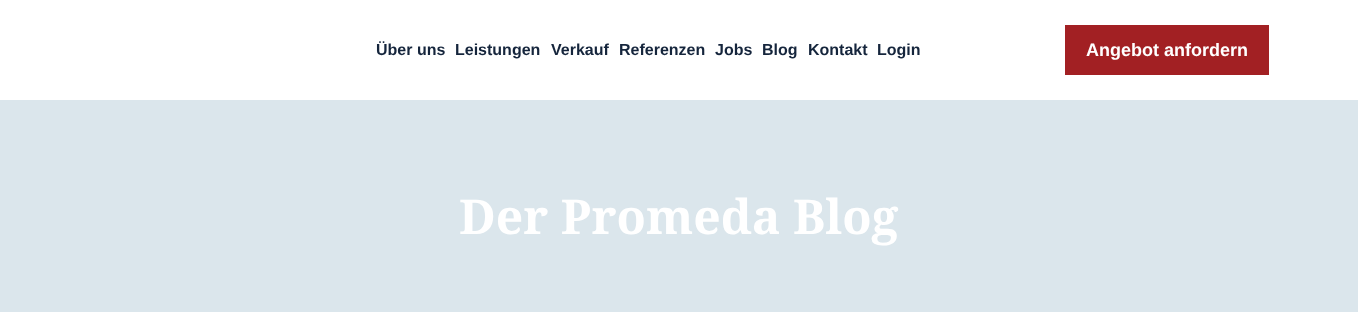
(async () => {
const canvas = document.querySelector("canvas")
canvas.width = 1358
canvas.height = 312
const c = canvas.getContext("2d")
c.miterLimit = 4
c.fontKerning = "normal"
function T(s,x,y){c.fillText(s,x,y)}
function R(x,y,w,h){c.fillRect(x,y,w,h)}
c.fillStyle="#dbe6ec"
R(0,0,1358,312)
c.fillStyle="#fff"
R(0,0,1358,100)
c.font="bold 16px Liberation Sans"
c.fillStyle="#15253c"
T("Über uns",376,55)
T("Leistungen",455,55)
T("Verkauf",551,55)
T("Referenzen",619,55)
T("Jobs",715,55)
T("Blog",762,55)
T("Kontakt",808,55)
T("Login",877,55)
c.fillStyle="#a22023"
R(1065,25,204,50)
c.font="bold 18px Liberation Sans"
c.fillStyle="#fff"
T("Angebot anfordern",1086,56)
c.font="bold 48px Droid Serif"
T("Der Promeda Blog",459,234)
})()
